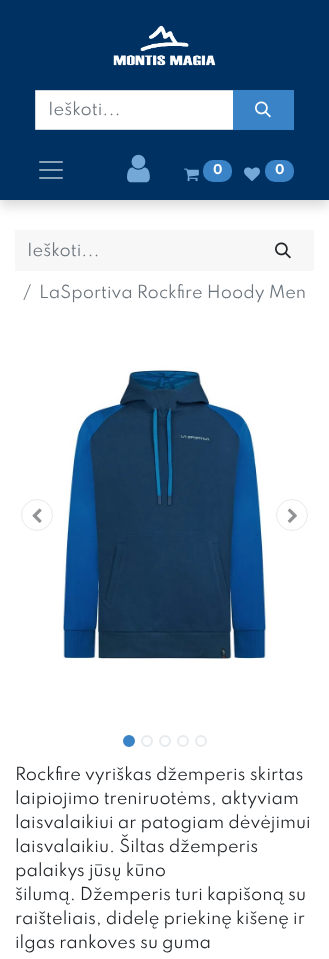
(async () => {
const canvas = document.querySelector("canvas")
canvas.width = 329
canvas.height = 959
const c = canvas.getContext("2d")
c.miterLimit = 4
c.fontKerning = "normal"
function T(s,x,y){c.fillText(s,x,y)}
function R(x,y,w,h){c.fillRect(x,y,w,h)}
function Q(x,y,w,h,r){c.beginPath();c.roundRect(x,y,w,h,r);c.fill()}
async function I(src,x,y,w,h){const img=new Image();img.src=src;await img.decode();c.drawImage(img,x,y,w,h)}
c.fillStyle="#fff"
R(0,0,329,959)
c.fillStyle="#00000026"
c.filter="blur(6px)"
c.beginPath()
c.rect(0,6,329,200)
c.fill()
c.filter="none"
c.fillStyle="#003163"
R(0,0,329,200)
await I("1.png",113,25,103,41)
c.fillStyle="#fff"
c.beginPath()
c.rect(35.5,90.5,198,39)
c.fill()
c.strokeStyle="#ced4da"
c.stroke()
c.font="16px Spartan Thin"
c.fillStyle="#6c757d"
T("Ieškoti...",48,115)
c.fillStyle="#3983c6"
R(233,90,61,40)
await I("2.png",255,101,16,17)
await I("3.png",39,161,24,18)
await I("4.png",127,154,23,29)
await I("5.png",184,168,15,14)
Q(203,160,29,22,10)
c.font="bold 12px Spartan Thin"
c.fillStyle="#fff"
T("0",213,174)
await I("6.png",244,167,16,14)
c.fillStyle="#3983c6"
Q(265,160,29,22,10)
c.fillStyle="#fff"
T("0",275,174)
c.fillStyle="#f7f7f7"
R(15,230,299,41)
c.font="16px Spartan Thin"
c.fillStyle="#6c757d"
T("Ieškoti...",27,256)
await I("7.png",275,242,16,17)
T("/",23,298)
T("LaSportiva Rockfire Hoody Men",39,298)
c.beginPath()
c.arc(37,515,15.5,0,7)
c.strokeStyle="#e7eaed"
c.stroke()
await I("8.png",32,508,10,15)
await I("9.png",62,366,206,293)
c.beginPath()
c.arc(292,515,15.5,0,7)
c.stroke()
await I("10.png",287,508,10,15)
c.fillStyle="#3983c6"
c.beginPath()
c.arc(129,741,5,0,7)
c.fill()
c.strokeStyle="#3983c6"
c.lineWidth=2
c.stroke()
c.beginPath()
c.arc(147,741,5,0,7)
c.strokeStyle="#e7eaed"
c.stroke()
c.beginPath()
c.arc(165,741,5,0,7)
c.stroke()
c.beginPath()
c.arc(183,741,5,0,7)
c.stroke()
c.beginPath()
c.arc(201,741,5,0,7)
c.stroke()
c.fillStyle="#212529"
T("Rockfire vyriškas džemperis skirtas",15,780)
T("laipiojimo treniruotėms, aktyviam",15,804)
T("laisvalaikiui ar patogiam dėvėjimui",15,828)
T("laisvalaikiu. Šiltas džemperis",15,852)
T("palaikys jūsų kūno",15,876)
T("šilumą. Džemperis turi kapišoną su",15,900)
T("raišteliais, didelę priekinę kišenę ir",15,924)
T("ilgas rankoves su guma",15,948)
})()
